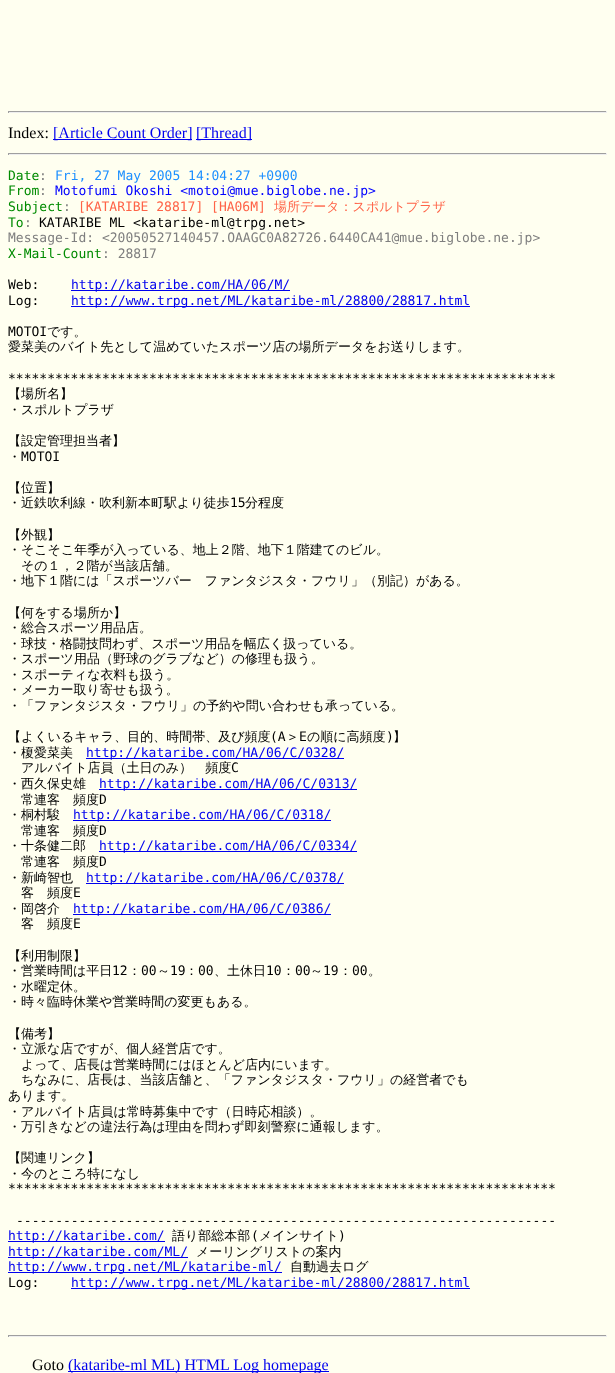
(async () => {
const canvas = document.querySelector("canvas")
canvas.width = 615
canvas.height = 1373
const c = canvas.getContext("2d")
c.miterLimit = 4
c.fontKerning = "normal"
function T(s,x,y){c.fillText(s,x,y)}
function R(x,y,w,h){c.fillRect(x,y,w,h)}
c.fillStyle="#fffff0"
R(0,0,615,1373)
c.fillStyle="#9f9f9f"
R(8,111,599,1)
c.fillStyle="#eee"
R(606,111,1,2)
R(8,112,599,1)
c.fillStyle="#9f9f9f"
R(8,111,1,2)
c.font="16px Liberation Serif"
c.fillStyle="#000"
T("Index:",8,138)
c.fillStyle="#00e"
R(53,139,139,1)
T("[Article Count Order]",53,138)
R(196,139,56,1)
T("[Thread]",196,138)
c.fillStyle="#9f9f9f"
R(8,153,599,1)
c.fillStyle="#eee"
R(606,153,1,2)
R(8,154,599,1)
c.fillStyle="#9f9f9f"
R(8,153,1,2)
c.font="13px DejaVu Sans Mono"
c.fillStyle="#008b00"
T("Date",8,180)
c.fillStyle="#7f7f7f"
T(":",39,180)
c.fillStyle="#1e90ff"
T("Fri, 27 May 2005 14:04:27 +0900",55,180)
c.fillStyle="#008b00"
T("From",8,195)
c.fillStyle="#7f7f7f"
T(":",39,195)
c.fillStyle="#00f"
T("Motofumi Okoshi <motoi@mue.biglobe.ne.jp>",55,195)
c.fillStyle="#008b00"
T("Subject",8,211)
c.fillStyle="#7f7f7f"
T(":",63,211)
c.fillStyle="#ff6347"
T("[KATARIBE 28817] [HA06M]",78,211)
c.font="500 13px WenQuanYi Zen Hei"
T("場所データ：スポルトプラザ",274,211)
c.font="13px DejaVu Sans Mono"
c.fillStyle="#008b00"
T("To",8,227)
c.fillStyle="#7f7f7f"
T(":",24,227)
c.fillStyle="#000"
T("KATARIBE ML <kataribe-ml@trpg.net>",39,227)
c.fillStyle="#7f7f7f"
T("Message-Id: <20050527140457.OAAGC0A82726.6440CA41@mue.biglobe.ne.jp>",8,242)
c.fillStyle="#008b00"
T("X-Mail-Count",8,258)
c.fillStyle="#7f7f7f"
T(": 28817",102,258)
c.fillStyle="#000"
T("Web:",8,289)
c.fillStyle="#00e"
R(71,290,219,1)
T("http://kataribe.com/HA/06/M/",71,289)
c.fillStyle="#000"
T("Log:",8,305)
c.fillStyle="#00e"
R(71,306,399,1)
T("http://www.trpg.net/ML/kataribe-ml/28800/28817.html",71,305)
c.fillStyle="#000"
T("MOTOI",8,336)
c.font="500 13px WenQuanYi Zen Hei"
T("です。",47,336)
T("愛菜美のバイト先として温めていたスポーツ店の場所データをお送りします。",8,351)
c.font="13px DejaVu Sans Mono"
T("**********************************************************************",8,383)
c.font="500 13px WenQuanYi Zen Hei"
T("【場所名】",8,398)
T("・スポルトプラザ",8,414)
T("【設定管理担当者】",8,445)
T("・",8,461)
c.font="13px DejaVu Sans Mono"
T("MOTOI",21,461)
c.font="500 13px WenQuanYi Zen Hei"
T("【位置】",8,492)
T("・近鉄吹利線・吹利新本町駅より徒歩",8,507)
c.font="13px DejaVu Sans Mono"
T("15",230,507)
c.font="500 13px WenQuanYi Zen Hei"
T("分程度",245,507)
T("【外観】",8,539)
T("・そこそこ年季が入っている、地上２階、地下１階建てのビル。",8,554)
T("その１，２階が当該店舗。",21,570)
T("・地下１階には「スポーツバー　ファンタジスタ・フウリ」（別記）がある。",8,585)
T("【何をする場所か】",8,617)
T("・総合スポーツ用品店。",8,632)
T("・球技・格闘技問わず、スポーツ用品を幅広く扱っている。",8,648)
T("・スポーツ用品（野球のグラブなど）の修理も扱う。",8,663)
T("・スポーティな衣料も扱う。",8,679)
T("・メーカー取り寄せも扱う。",8,694)
T("・「ファンタジスタ・フウリ」の予約や問い合わせも承っている。",8,710)
T("【よくいるキャラ、目的、時間帯、及び頻度",8,741)
c.font="13px DejaVu Sans Mono"
T("(A",270,741)
c.font="500 13px WenQuanYi Zen Hei"
T("＞",286,741)
c.font="13px DejaVu Sans Mono"
T("E",299,741)
c.font="500 13px WenQuanYi Zen Hei"
T("の順に高頻度",307,741)
c.font="13px DejaVu Sans Mono"
T(")",386,741)
c.font="500 13px WenQuanYi Zen Hei"
T("】",393,741)
T("・榎愛菜美",8,757)
c.fillStyle="#00e"
R(86,758,258,1)
c.font="13px DejaVu Sans Mono"
T("http://kataribe.com/HA/06/C/0328/",86,757)
c.font="500 13px WenQuanYi Zen Hei"
c.fillStyle="#000"
T("アルバイト店員（土日のみ）　頻度",21,772)
c.font="13px DejaVu Sans Mono"
T("C",231,772)
c.font="500 13px WenQuanYi Zen Hei"
T("・西久保史雄",8,788)
c.fillStyle="#00e"
R(99,789,258,1)
c.font="13px DejaVu Sans Mono"
T("http://kataribe.com/HA/06/C/0313/",99,788)
c.font="500 13px WenQuanYi Zen Hei"
c.fillStyle="#000"
T("常連客　頻度",21,804)
c.font="13px DejaVu Sans Mono"
T("D",99,804)
c.font="500 13px WenQuanYi Zen Hei"
T("・桐村駿",8,819)
c.fillStyle="#00e"
R(73,820,258,1)
c.font="13px DejaVu Sans Mono"
T("http://kataribe.com/HA/06/C/0318/",73,819)
c.font="500 13px WenQuanYi Zen Hei"
c.fillStyle="#000"
T("常連客　頻度",21,835)
c.font="13px DejaVu Sans Mono"
T("D",99,835)
c.font="500 13px WenQuanYi Zen Hei"
T("・十条健二郎",8,850)
c.fillStyle="#00e"
R(99,851,258,1)
c.font="13px DejaVu Sans Mono"
T("http://kataribe.com/HA/06/C/0334/",99,850)
c.font="500 13px WenQuanYi Zen Hei"
c.fillStyle="#000"
T("常連客　頻度",21,866)
c.font="13px DejaVu Sans Mono"
T("D",99,866)
c.font="500 13px WenQuanYi Zen Hei"
T("・新崎智也",8,882)
c.fillStyle="#00e"
R(86,883,258,1)
c.font="13px DejaVu Sans Mono"
T("http://kataribe.com/HA/06/C/0378/",86,882)
c.font="500 13px WenQuanYi Zen Hei"
c.fillStyle="#000"
T("客　頻度",21,897)
c.font="13px DejaVu Sans Mono"
T("E",73,897)
c.font="500 13px WenQuanYi Zen Hei"
T("・岡啓介",8,913)
c.fillStyle="#00e"
R(73,914,258,1)
c.font="13px DejaVu Sans Mono"
T("http://kataribe.com/HA/06/C/0386/",73,913)
c.font="500 13px WenQuanYi Zen Hei"
c.fillStyle="#000"
T("客　頻度",21,928)
c.font="13px DejaVu Sans Mono"
T("E",73,928)
c.font="500 13px WenQuanYi Zen Hei"
T("【利用制限】",8,960)
T("・営業時間は平日",8,975)
c.font="13px DejaVu Sans Mono"
T("12",112,975)
c.font="500 13px WenQuanYi Zen Hei"
T("：",128,975)
c.font="13px DejaVu Sans Mono"
T("00",141,975)
c.font="500 13px WenQuanYi Zen Hei"
T("～",157,975)
c.font="13px DejaVu Sans Mono"
T("19",170,975)
c.font="500 13px WenQuanYi Zen Hei"
T("：",185,975)
c.font="13px DejaVu Sans Mono"
T("00",198,975)
c.font="500 13px WenQuanYi Zen Hei"
T("、土休日",214,975)
c.font="13px DejaVu Sans Mono"
T("10",266,975)
c.font="500 13px WenQuanYi Zen Hei"
T("：",282,975)
c.font="13px DejaVu Sans Mono"
T("00",295,975)
c.font="500 13px WenQuanYi Zen Hei"
T("～",310,975)
c.font="13px DejaVu Sans Mono"
T("19",323,975)
c.font="500 13px WenQuanYi Zen Hei"
T("：",339,975)
c.font="13px DejaVu Sans Mono"
T("00",352,975)
c.font="500 13px WenQuanYi Zen Hei"
T("。",368,975)
T("・水曜定休。",8,991)
T("・時々臨時休業や営業時間の変更もある。",8,1006)
T("【備考】",8,1038)
T("・立派な店ですが、個人経営店です。",8,1053)
T("よって、店長は営業時間にはほとんど店内にいます。",21,1069)
T("ちなみに、店長は、当該店舗と、「ファンタジスタ・フウリ」の経営者でも",21,1084)
T("あります。",8,1100)
T("・アルバイト店員は常時募集中です（日時応相談）。",8,1116)
T("・万引きなどの違法行為は理由を問わず即刻警察に通報します。",8,1131)
T("【関連リンク】",8,1162)
T("・今のところ特になし",8,1178)
c.font="13px DejaVu Sans Mono"
T("**********************************************************************",8,1193)
T("---------------------------------------------------------------------",16,1225)
c.fillStyle="#00e"
R(8,1241,157,1)
T("http://kataribe.com/",8,1240)
c.font="500 13px WenQuanYi Zen Hei"
c.fillStyle="#000"
T("語り部総本部",172,1240)
c.font="13px DejaVu Sans Mono"
T("(",251,1240)
c.font="500 13px WenQuanYi Zen Hei"
T("メインサイト",259,1240)
c.font="13px DejaVu Sans Mono"
T(")",338,1240)
c.fillStyle="#00e"
R(8,1257,180,1)
T("http://kataribe.com/ML/",8,1256)
c.font="500 13px WenQuanYi Zen Hei"
c.fillStyle="#000"
T("メーリングリストの案内",196,1256)
c.fillStyle="#00e"
R(8,1272,274,1)
c.font="13px DejaVu Sans Mono"
T("http://www.trpg.net/ML/kataribe-ml/",8,1271)
c.font="500 13px WenQuanYi Zen Hei"
c.fillStyle="#000"
T("自動過去ログ",290,1271)
c.font="13px DejaVu Sans Mono"
T("Log:",8,1287)
c.fillStyle="#00e"
R(71,1288,399,1)
T("http://www.trpg.net/ML/kataribe-ml/28800/28817.html",71,1287)
c.fillStyle="#9f9f9f"
R(8,1335,599,1)
c.fillStyle="#eee"
R(606,1335,1,2)
R(8,1336,599,1)
c.fillStyle="#9f9f9f"
R(8,1335,1,2)
c.font="16px Liberation Serif"
c.fillStyle="#000"
T("Goto",32,1370)
c.fillStyle="#00e"
R(68,1371,261,1)
T("(kataribe-ml ML) HTML Log homepage",68,1370)
})()
